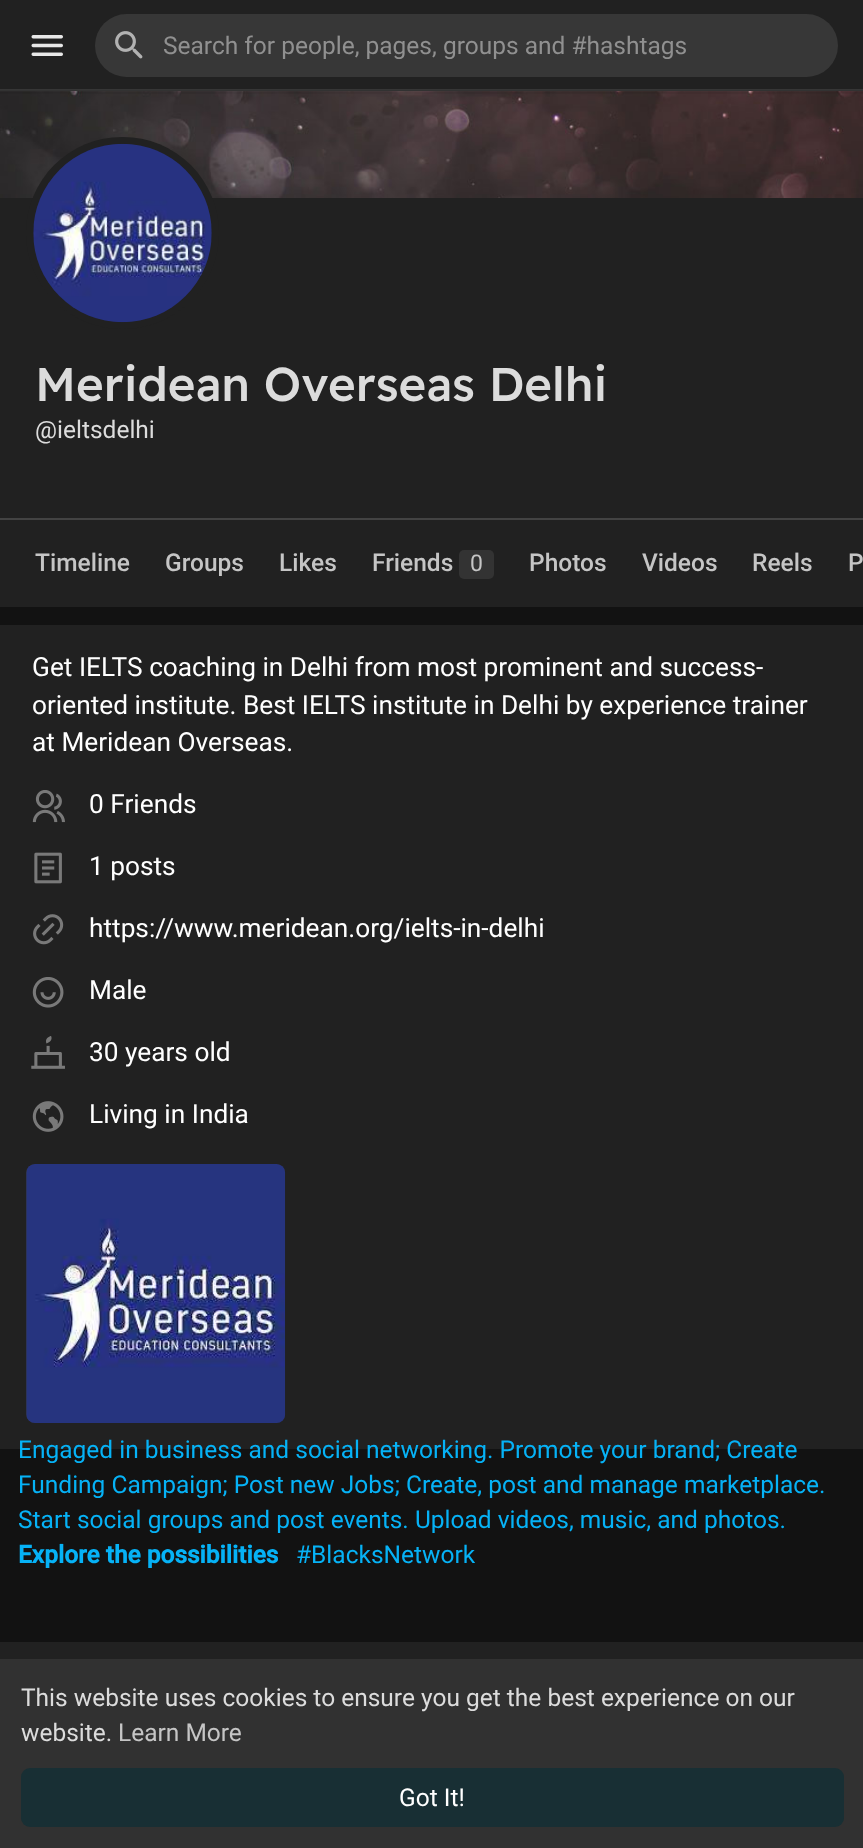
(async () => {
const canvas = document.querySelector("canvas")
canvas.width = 863
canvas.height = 1848
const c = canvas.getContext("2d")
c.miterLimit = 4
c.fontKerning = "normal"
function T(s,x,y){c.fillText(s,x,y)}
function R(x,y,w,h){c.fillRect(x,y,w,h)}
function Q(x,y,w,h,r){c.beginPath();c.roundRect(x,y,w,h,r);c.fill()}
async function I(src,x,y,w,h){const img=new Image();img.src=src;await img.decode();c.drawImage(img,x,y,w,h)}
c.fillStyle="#121212"
R(0,0,863,1848)
c.fillStyle="#212121"
R(0,0,863,91)
await I("1.png",31,35,32,21)
c.fillStyle="#373737"
Q(95,14,743,63,31.5)
await I("2.png",115,31,28,28)
c.font="24.5px Roboto"
c.fillStyle="#909090"
T("Search for people, pages, groups and #hashtags",163,54)
await I("4.png",0,91,863,107)
await I("3.png",0,89,863,5)
c.fillStyle="#212121"
R(0,198,863,409)
Q(26,137,193,192,96)
await I("5.png",33,143,179,180)
c.font="500 47.25px Readex Pro"
c.fillStyle="#dcdcdc"
T("Meridean Overseas Delhi",35,401)
c.font="24.5px Roboto"
T("@ieltsdelhi",35,438)
c.fillStyle="#434343"
R(0,518,863,2)
c.font="500 24.5px Roboto"
c.fillStyle="#c5c5c5"
T("Timeline",35,571)
T("Groups",165,571)
T("Likes",279,571)
T("Friends",372,571)
c.fillStyle="#333"
Q(459,550,35,29,5)
c.font="23px Roboto"
c.fillStyle="#c5c5c5"
T("0",470,571)
c.font="500 24.5px Roboto"
T("Photos",529,571)
T("Videos",642,571)
T("Reels",752,571)
T("P",848,571)
c.fillStyle="#212121"
R(0,625,863,824)
c.font="26.25px Roboto"
c.fillStyle="#fff"
T("Get IELTS coaching in Delhi from most prominent and success-",32,676)
T("oriented institute. Best IELTS institute in Delhi by experience trainer",32,714)
T("at Meridean Overseas.",32,751)
await I("6.png",32,790,33,33)
T("0 Friends",89,813)
await I("7.png",34,852,28,32)
T("1 posts",89,875)
await I("8.png",33,914,31,31)
T("https://www.meridean.org/ielts-in-delhi",89,937)
await I("9.png",32,977,32,31)
T("Male",89,999)
await I("10.png",31,1036,34,33)
T("30 years old",89,1061)
await I("11.png",32,1101,32,31)
T("Living in India",89,1123)
c.fillStyle="#333"
Q(26,1164,259,259,9)
await I("12.png",26,1164,260,259)
c.font="24.5px Roboto"
c.fillStyle="#06b2f6"
T("Engaged in business and social networking. Promote your brand; Create",18,1458)
T("Funding Campaign; Post new Jobs; Create, post and manage marketplace.",18,1493)
T("Start social groups and post events. Upload videos, music, and photos.",18,1528)
c.font="bold 24.5px Roboto"
T("Explore the possibilities",18,1563)
c.font="24.5px Roboto"
T("#BlacksNetwork",296,1563)
c.fillStyle="#212121"
R(0,1642,863,17)
c.fillStyle="#313131"
R(0,1659,863,189)
c.fillStyle="#dcdcdc"
T("This website uses cookies to ensure you get the best experience on our",21,1706)
T("website.",21,1741)
c.fillStyle="#c5c5c5"
T("Learn More",118,1741)
c.fillStyle="#182f34"
Q(21,1768,823,59,9)
c.fillStyle="#fff"
T("Got It!",399,1806)
})()
